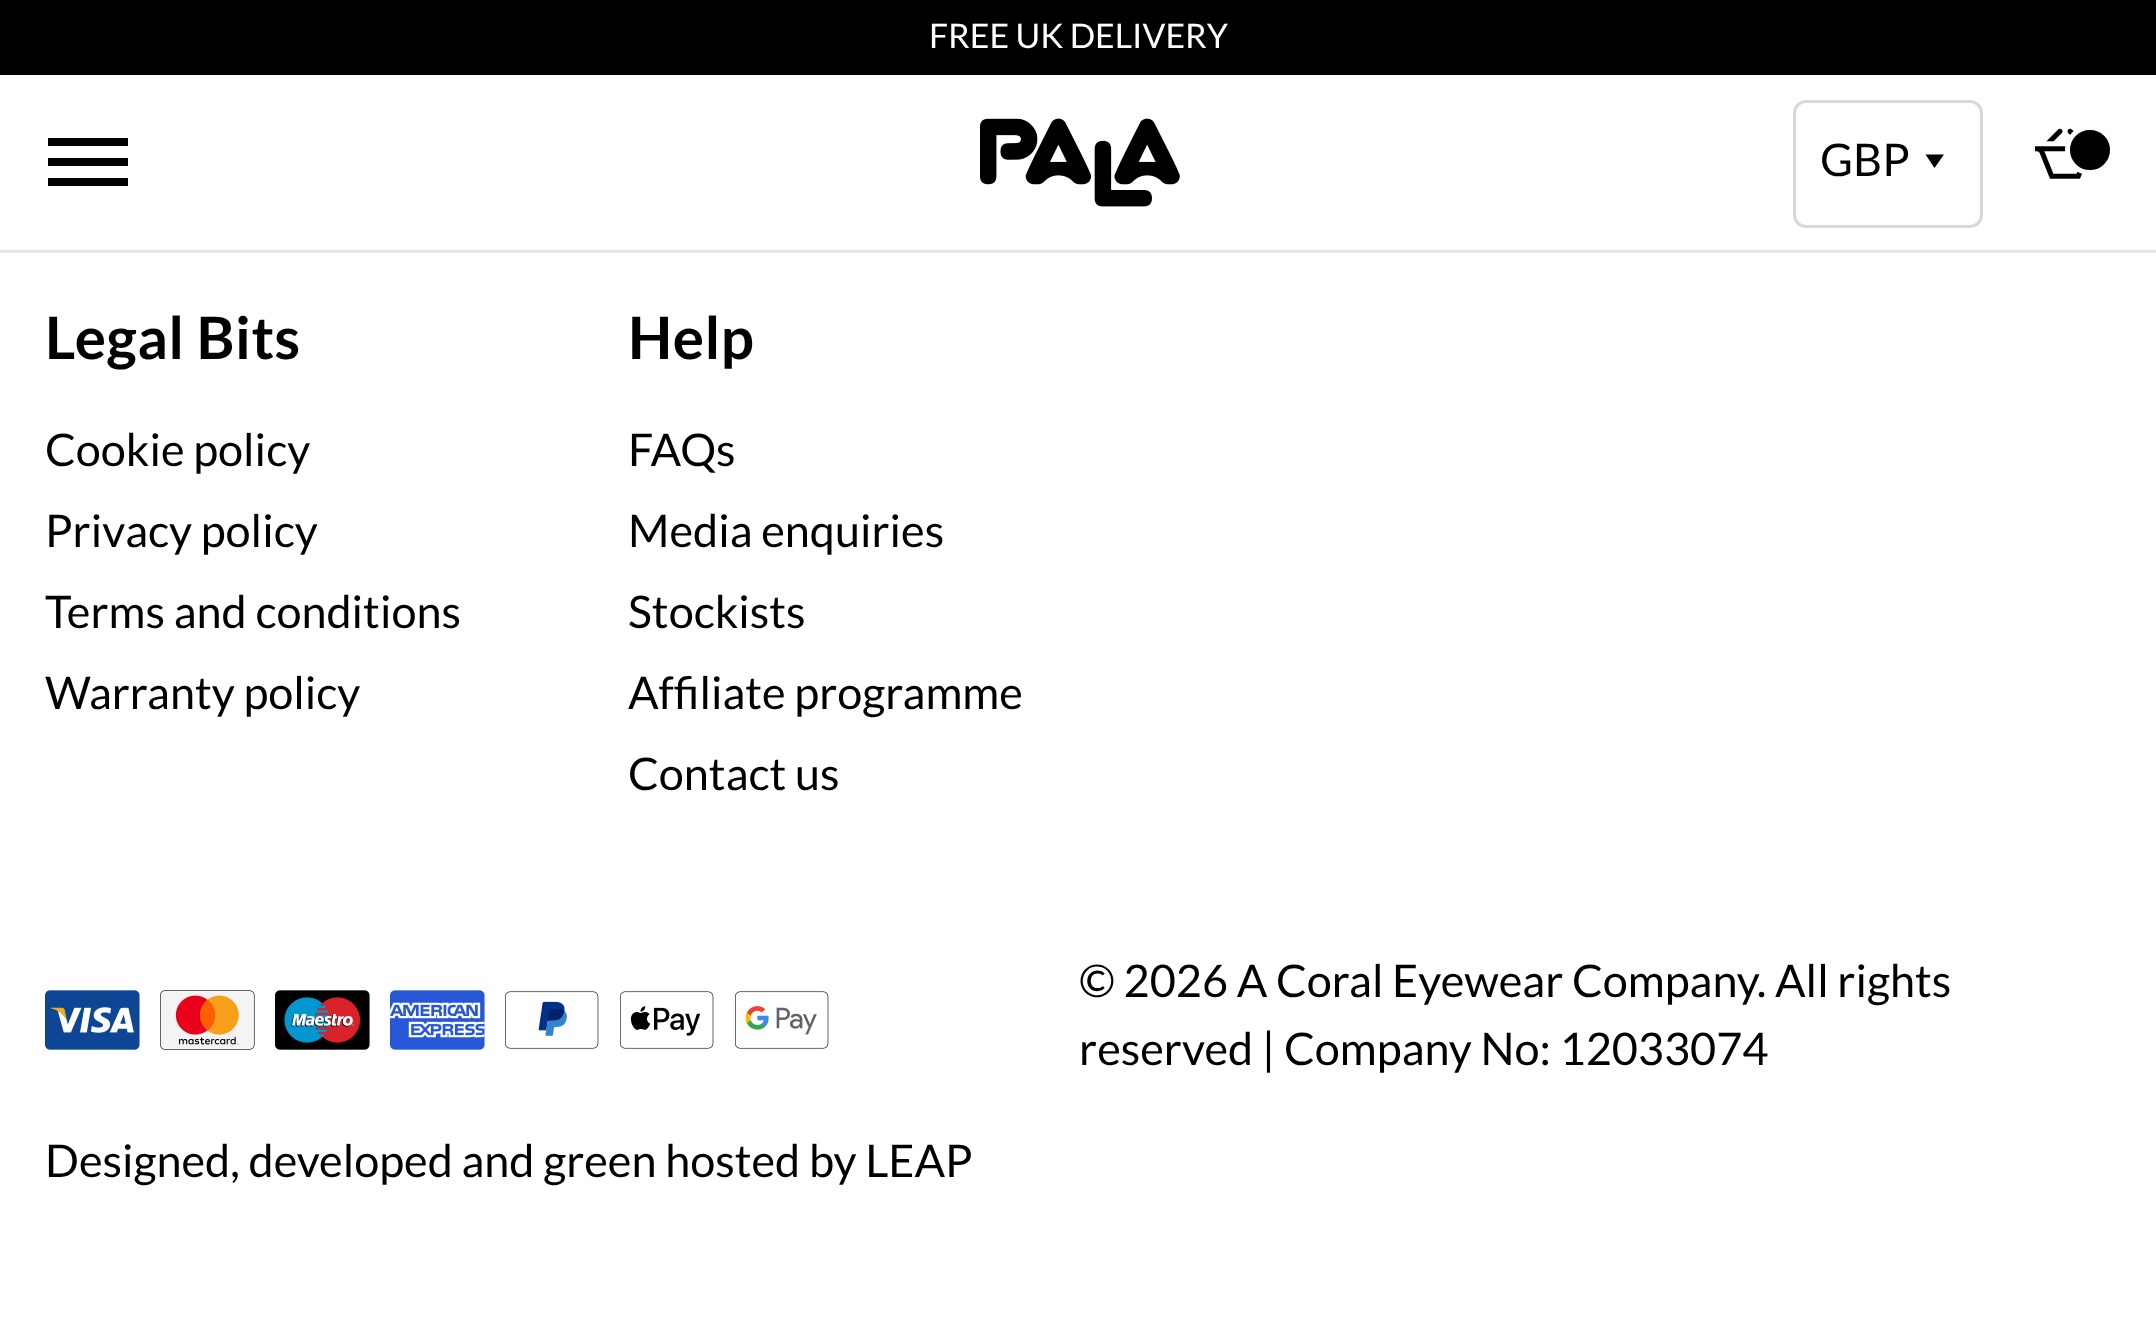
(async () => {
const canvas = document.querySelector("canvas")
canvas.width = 2156
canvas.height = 1330
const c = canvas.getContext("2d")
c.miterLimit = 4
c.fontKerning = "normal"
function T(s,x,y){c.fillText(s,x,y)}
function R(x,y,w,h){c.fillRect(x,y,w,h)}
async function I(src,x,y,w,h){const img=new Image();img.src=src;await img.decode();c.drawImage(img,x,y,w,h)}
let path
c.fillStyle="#fff"
R(0,0,2156,1330)
c.fillStyle="#e6e6e6"
R(0,250,2156,3)
c.fillStyle="#000"
R(0,0,2156,75)
c.font="33.75px Lato"
c.fillStyle="#fff"
T("FREE UK DELIVERY",929,48)
c.fillStyle="#000"
R(48,138,80,8)
R(48,158,80,8)
R(48,178,80,8)
await I("1.png",980,118,200,89)
c.beginPath()
c.roundRect(1794.5,101.5,187,125,11.5)
c.strokeStyle="#d8d8d8"
c.lineWidth=3
c.stroke()
c.font="45px Lato"
T("GBP",1820,176)
path = new Path2D("M1944 154.5l-9.5 13.5l-9-13.5z")
c.fill(path)
await I("2.png",2035,128,48,51)
c.beginPath()
c.arc(2090,150,22.5,0,7)
c.fill()
c.strokeStyle="#fff"
c.lineWidth=5
c.stroke()
c.letterSpacing="0.5px"
c.font="bold 58.5px Lato"
T("Legal Bits",45,359)
c.letterSpacing="0px"
c.font="45px Lato"
T("Cookie policy",45,466)
T("Privacy policy",45,547)
T("Terms and conditions",45,628)
T("Warranty policy",45,709)
c.letterSpacing="0.5px"
c.font="bold 58.5px Lato"
T("Help",628,359)
c.letterSpacing="0px"
c.font="45px Lato"
T("FAQs",628,466)
T("Media enquiries",628,547)
T("Stockists",628,628)
T("Affiliate programme",628,709)
T("Contact us",628,790)
await I("3.png",45,990,95,60)
await I("4.png",160,990,95,60)
await I("5.png",275,990,95,60)
await I("6.png",390,990,95,60)
await I("7.png",505,991,94,58)
await I("8.png",620,991,94,58)
await I("9.png",735,991,94,58)
T("© 2026 A Coral Eyewear Company. All rights",1079,997)
T("reserved | Company No: 12033074",1079,1065)
T("Designed, developed and green hosted by LEAP",45,1177)
})()
